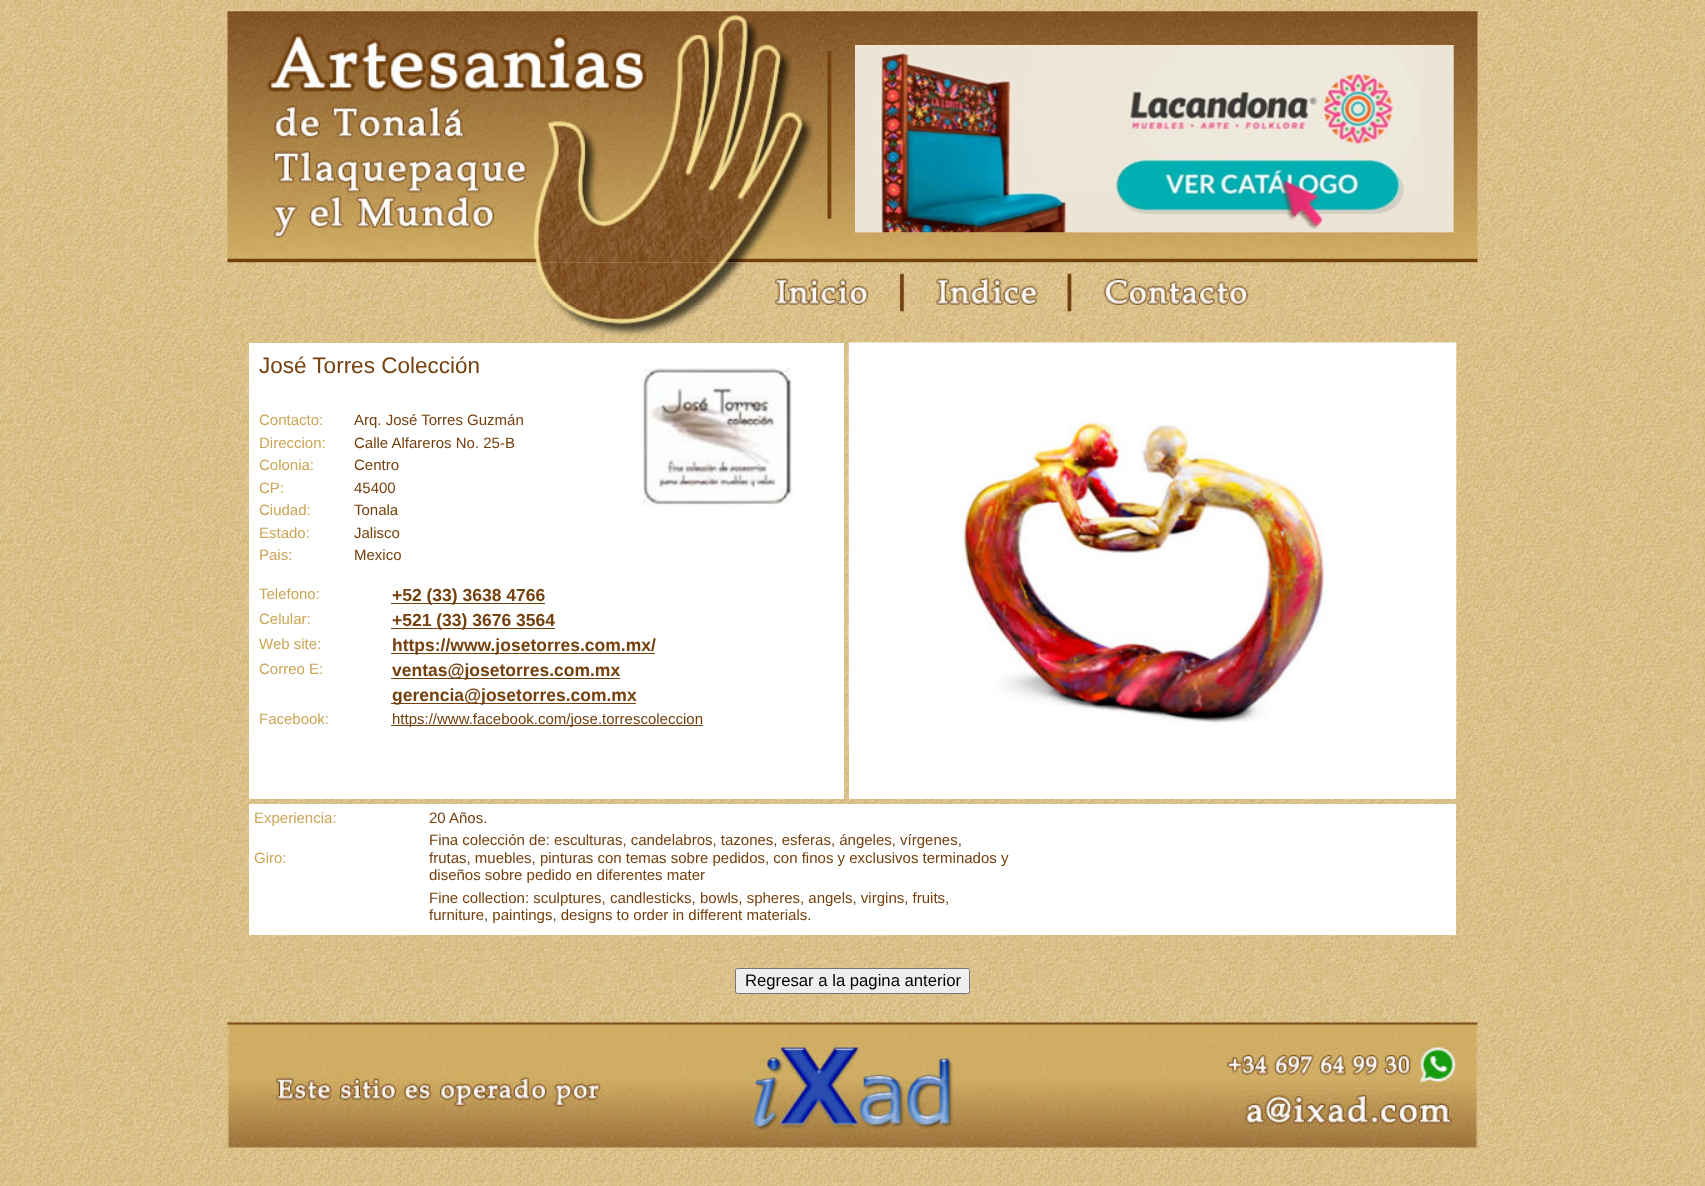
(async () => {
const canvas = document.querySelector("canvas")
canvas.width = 1705
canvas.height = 1186
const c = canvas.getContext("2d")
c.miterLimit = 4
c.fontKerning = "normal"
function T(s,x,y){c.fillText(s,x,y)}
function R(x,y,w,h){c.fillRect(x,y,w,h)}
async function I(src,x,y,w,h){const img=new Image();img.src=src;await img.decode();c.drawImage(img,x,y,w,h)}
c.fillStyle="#fff"
R(0,0,1705,1186)
await I("1.png",0,0,1705,1186)
await I("2.png",227,11,628,252)
await I("3.png",855,11,623,34)
await I("4.png",855,45,599,188)
await I("5.png",1453,45,25,188)
await I("6.png",855,232,623,31)
await I("7.png",227,262,548,43)
await I("8.png",775,262,94,17)
await I("9.png",868,262,69,43)
await I("10.png",936,262,102,16)
await I("11.png",1037,262,67,43)
await I("12.png",1103,262,145,17)
await I("13.png",1247,262,50,43)
await I("14.png",1296,262,138,16)
await I("15.png",1433,262,45,43)
await I("16.png",936,277,102,28)
await I("17.png",1296,277,138,28)
await I("18.png",775,278,94,27)
await I("19.png",1103,278,145,27)
await I("20.png",227,305,1251,33)
R(249,343,595,456)
c.font="22.5px Liberation Sans"
c.fillStyle="#74400e"
T("José Torres Colección",259,373)
c.font="15px Liberation Sans"
c.fillStyle="#caa555"
T("Contacto:",259,425)
c.fillStyle="#74400e"
T("Arq. José Torres Guzmán",354,425)
c.fillStyle="#caa555"
T("Direccion:",259,448)
c.fillStyle="#74400e"
T("Calle Alfareros No. 25-B",354,448)
c.fillStyle="#caa555"
T("Colonia:",259,470)
c.fillStyle="#74400e"
T("Centro",354,470)
c.fillStyle="#caa555"
T("CP:",259,493)
c.fillStyle="#74400e"
T("45400",354,493)
c.fillStyle="#caa555"
T("Ciudad:",259,515)
c.fillStyle="#74400e"
T("Tonala",354,515)
c.fillStyle="#caa555"
T("Estado:",259,538)
c.fillStyle="#74400e"
T("Jalisco",354,538)
c.fillStyle="#caa555"
T("Pais:",259,560)
c.fillStyle="#74400e"
T("Mexico",354,560)
await I("21.png",639,367,156,140)
c.fillStyle="#caa555"
T("Telefono:",259,599)
c.fillStyle="#74400e"
R(391,603,154,1)
c.font="bold 17.5px Liberation Sans"
T("+52 (33) 3638 4766",392,601)
c.font="15px Liberation Sans"
c.fillStyle="#caa555"
T("Celular:",259,624)
c.fillStyle="#74400e"
R(391,628,164,1)
c.font="bold 17.5px Liberation Sans"
T("+521 (33) 3676 3564",392,626)
c.font="15px Liberation Sans"
c.fillStyle="#caa555"
T("Web site:",259,649)
c.fillStyle="#74400e"
R(391,653,264,1)
c.font="bold 17.5px Liberation Sans"
T("https://www.josetorres.com.mx/",392,651)
c.font="15px Liberation Sans"
c.fillStyle="#caa555"
T("Correo E:",259,674)
c.fillStyle="#74400e"
R(391,678,229,1)
c.font="bold 17.5px Liberation Sans"
T("ventas@josetorres.com.mx",392,676)
R(391,703,245,1)
T("gerencia@josetorres.com.mx",392,701)
c.font="15px Liberation Sans"
c.fillStyle="#caa555"
T("Facebook:",259,724)
c.fillStyle="#74400e"
R(391,725,312,1)
T("https://www.facebook.com/jose.torrescoleccion",392,724)
c.fillStyle="#fff"
R(849,742,607,57)
await I("22.png",848,342,609,401)
R(249,804,1207,131)
c.fillStyle="#caa555"
T("Experiencia:",254,823)
c.fillStyle="#74400e"
T("20 Años.",429,823)
c.fillStyle="#caa555"
T("Giro:",254,863)
c.fillStyle="#74400e"
T("Fina colección de: esculturas, candelabros, tazones, esferas, ángeles, vírgenes,",429,845)
T("frutas, muebles, pinturas con temas sobre pedidos, con finos y exclusivos terminados y",429,863)
T("diseños sobre pedido en diferentes mater",429,880)
T("Fine collection: sculptures, candlesticks, bowls, spheres, angels, virgins, fruits,",429,903)
T("furniture, paintings, designs to order in different materials.",429,920)
c.fillStyle="#efefef"
c.beginPath()
c.roundRect(735.5,968.5,234,25,2)
c.fill()
c.strokeStyle="#767676"
c.stroke()
c.font="16.7px Liberation Sans"
c.fillStyle="#000"
T("Regresar a la pagina anterior",745,986)
await I("23.png",227,1016,1251,21)
await I("24.png",227,1036,978,112)
await I("25.png",1205,1036,273,53)
await I("26.png",1205,1088,273,60)
})()
